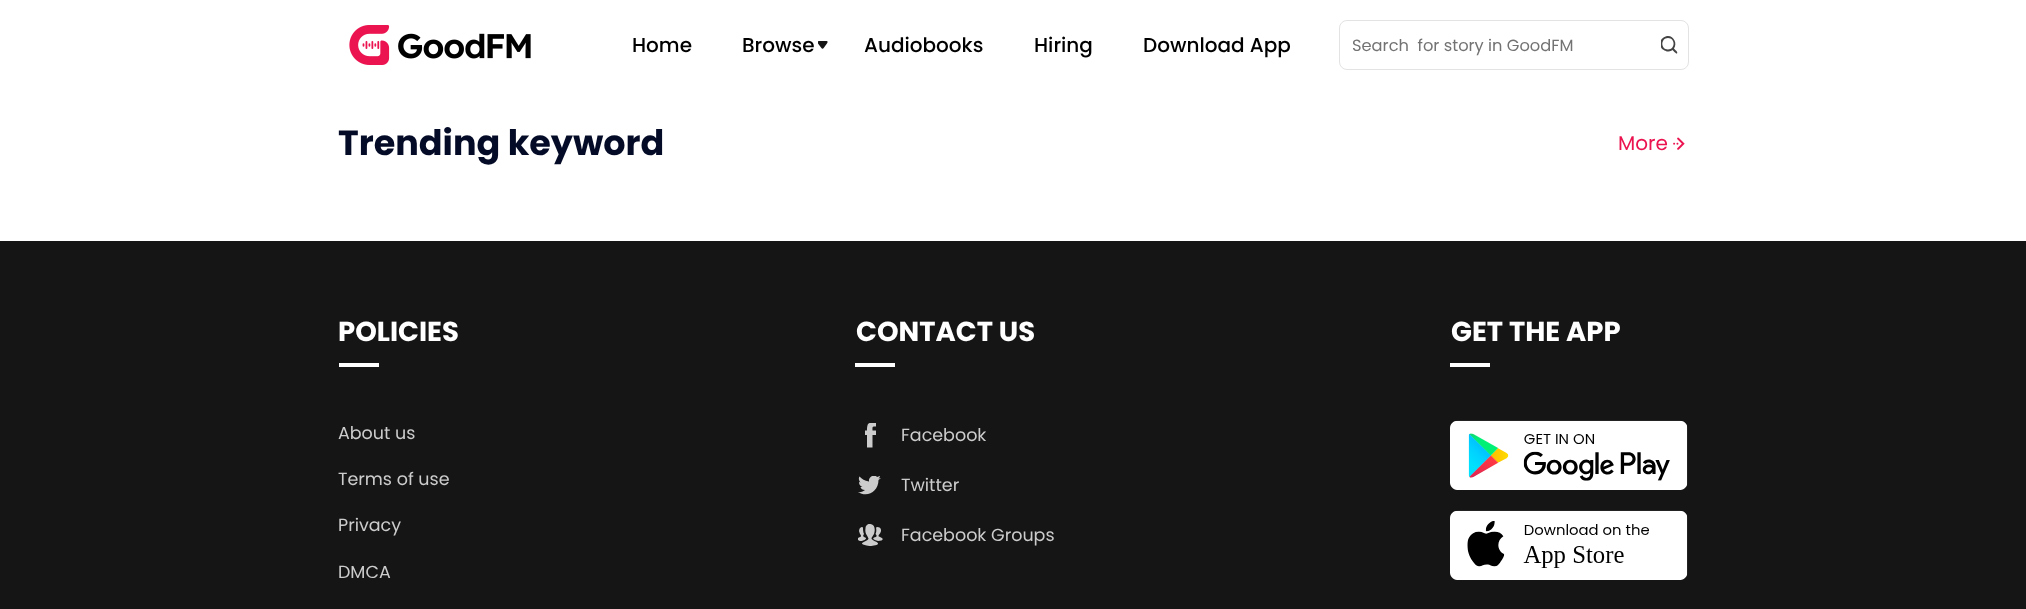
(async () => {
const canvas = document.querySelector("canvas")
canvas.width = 2026
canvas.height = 609
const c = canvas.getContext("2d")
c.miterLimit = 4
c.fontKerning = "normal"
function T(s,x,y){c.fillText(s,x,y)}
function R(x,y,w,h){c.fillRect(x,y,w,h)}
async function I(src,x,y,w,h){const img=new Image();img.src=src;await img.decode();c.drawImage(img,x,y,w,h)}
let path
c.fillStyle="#fff"
R(0,0,2026,609)
await I("1.png",349,25,182,40)
c.font="500 20px Poppins"
c.fillStyle="#000"
T("Home",632,52)
T("Browse",742,52)
c.fillStyle="#151515"
path = new Path2D("M826.5 41c3 0-1 4.5-1 4.5c-2 2.5-2.5 4.5-4.5 2l-3-4v-2l.5-.5z")
c.fill(path)
c.fillStyle="#000"
T("Audiobooks",864,52)
T("Hiring",1034,52)
T("Download App",1143,52)
c.beginPath()
c.roundRect(1339.5,20.5,349,49,7.5)
c.strokeStyle="#e3e3e3"
c.stroke()
c.font="16.25px Poppins"
c.fillStyle="#737373"
T("Search  for story in GoodFM",1352,51)
c.fillStyle="#444"
path = new Path2D("M1668 36c6 0 9.5 7.5 6 12.5c.5 1 4.5 3.5 3 5c-1 .5-4-3-4.5-3.5c-1.5 1-3.5 1.5-5.5 1.5c-1.5-.5-6-2.5-6-4.5v-6.5c.5-2.5 5-4.5 7-4.5zm0 2c7.5 0 7.5 11.5 0 11.5c-7.5 0-7.5-11.5 0-11.5z")
c.fill(path,"evenodd")
c.font="bold 35px Poppins"
c.fillStyle="#040b26"
T("Trending keyword",338,155)
c.font="20px Poppins"
c.fillStyle="#eb1450"
T("More",1618,150)
await I("2.png",1673,137,12,13)
c.fillStyle="#151515"
R(0,241,2026,368)
c.font="bold 27.5px Poppins"
c.fillStyle="#fff"
T("POLICIES",338,341)
R(339,363,40,4)
c.font="17.5px Poppins"
c.fillStyle="#ccc"
T("About us",338,439)
T("Terms of use",338,485)
T("Privacy",338,531)
T("DMCA",338,578)
c.font="bold 27.5px Poppins"
c.fillStyle="#fff"
T("CONTACT US",856,341)
R(855,363,40,4)
c.fillStyle="#ccc"
path = new Path2D("M865 430.5h2c0-2 0-7 2.5-7.5h6.5v3.5c-4 0-3.5 0-3.5 4h3.5v4.5h-3.5v12.5h-5.5v-12.5h-2z")
c.fill(path)
c.font="17.5px Poppins"
T("Facebook",901,441)
path = new Path2D("M877 477l-1-1h-4c-2 1-3.5 3-3 5.5c-4.5-.5-7-2.5-9.5-5c-1.5 2 0 5.5 1.5 6l-2-.5c0 3 1.5 4 3.5 5h-2c.5 2 2 3 4.5 3c-1.5 1.5-4.5 2.5-7 2c9.5 6 20.5-.5 20.5-12l2.5-2l-2.5 .5c.5-.5 1.5-1.5 1.5-2.5z")
c.fill(path)
T("Twitter",901,491)
path = new Path2D("M862 527l1 .5c0 2 0 4.5 1 6.5c-2 3 0 2.5 2 4c.5 1.5-3 2.5-4 3c-1.5 0-3 0-4-1v-2l3-1.5c.5-1-1.5-3-1.5-4c-1-1.5 0-5.5 2.5-5.5zm7.5-3h-1c-2 .5-3 2.5-3 4c-.5 3 0 5.5 1.5 7.5l1.5 3c0 2.5-9.5 4-5.5 6l3.5 1l3 .5c1.5 0 7.5-.5 8.5-2c1-2.5-7-3-6.5-6l2.5-4c1.5-4 1-9.5-3.5-10zm8 3l-1.5 .5c.5 2.5 .5 4.5-.5 6.5c2 2.5 1.5 2.5-1.5 3.5c-3 2 3 3 4 3.5l3.5-.5c4-2.5-3-3.5-3-4.5c0-1.5 1.5-2 2-3.5c1.5-2.5 0-5.5-3-5.5z")
c.fill(path,"evenodd")
T("Facebook Groups",901,541)
c.font="bold 27.5px Poppins"
c.fillStyle="#fff"
T("GET THE APP",1451,341)
R(1450,363,40,4)
await I("3.png",1450,420,238,70)
await I("4.png",1450,510,238,70)
})()
